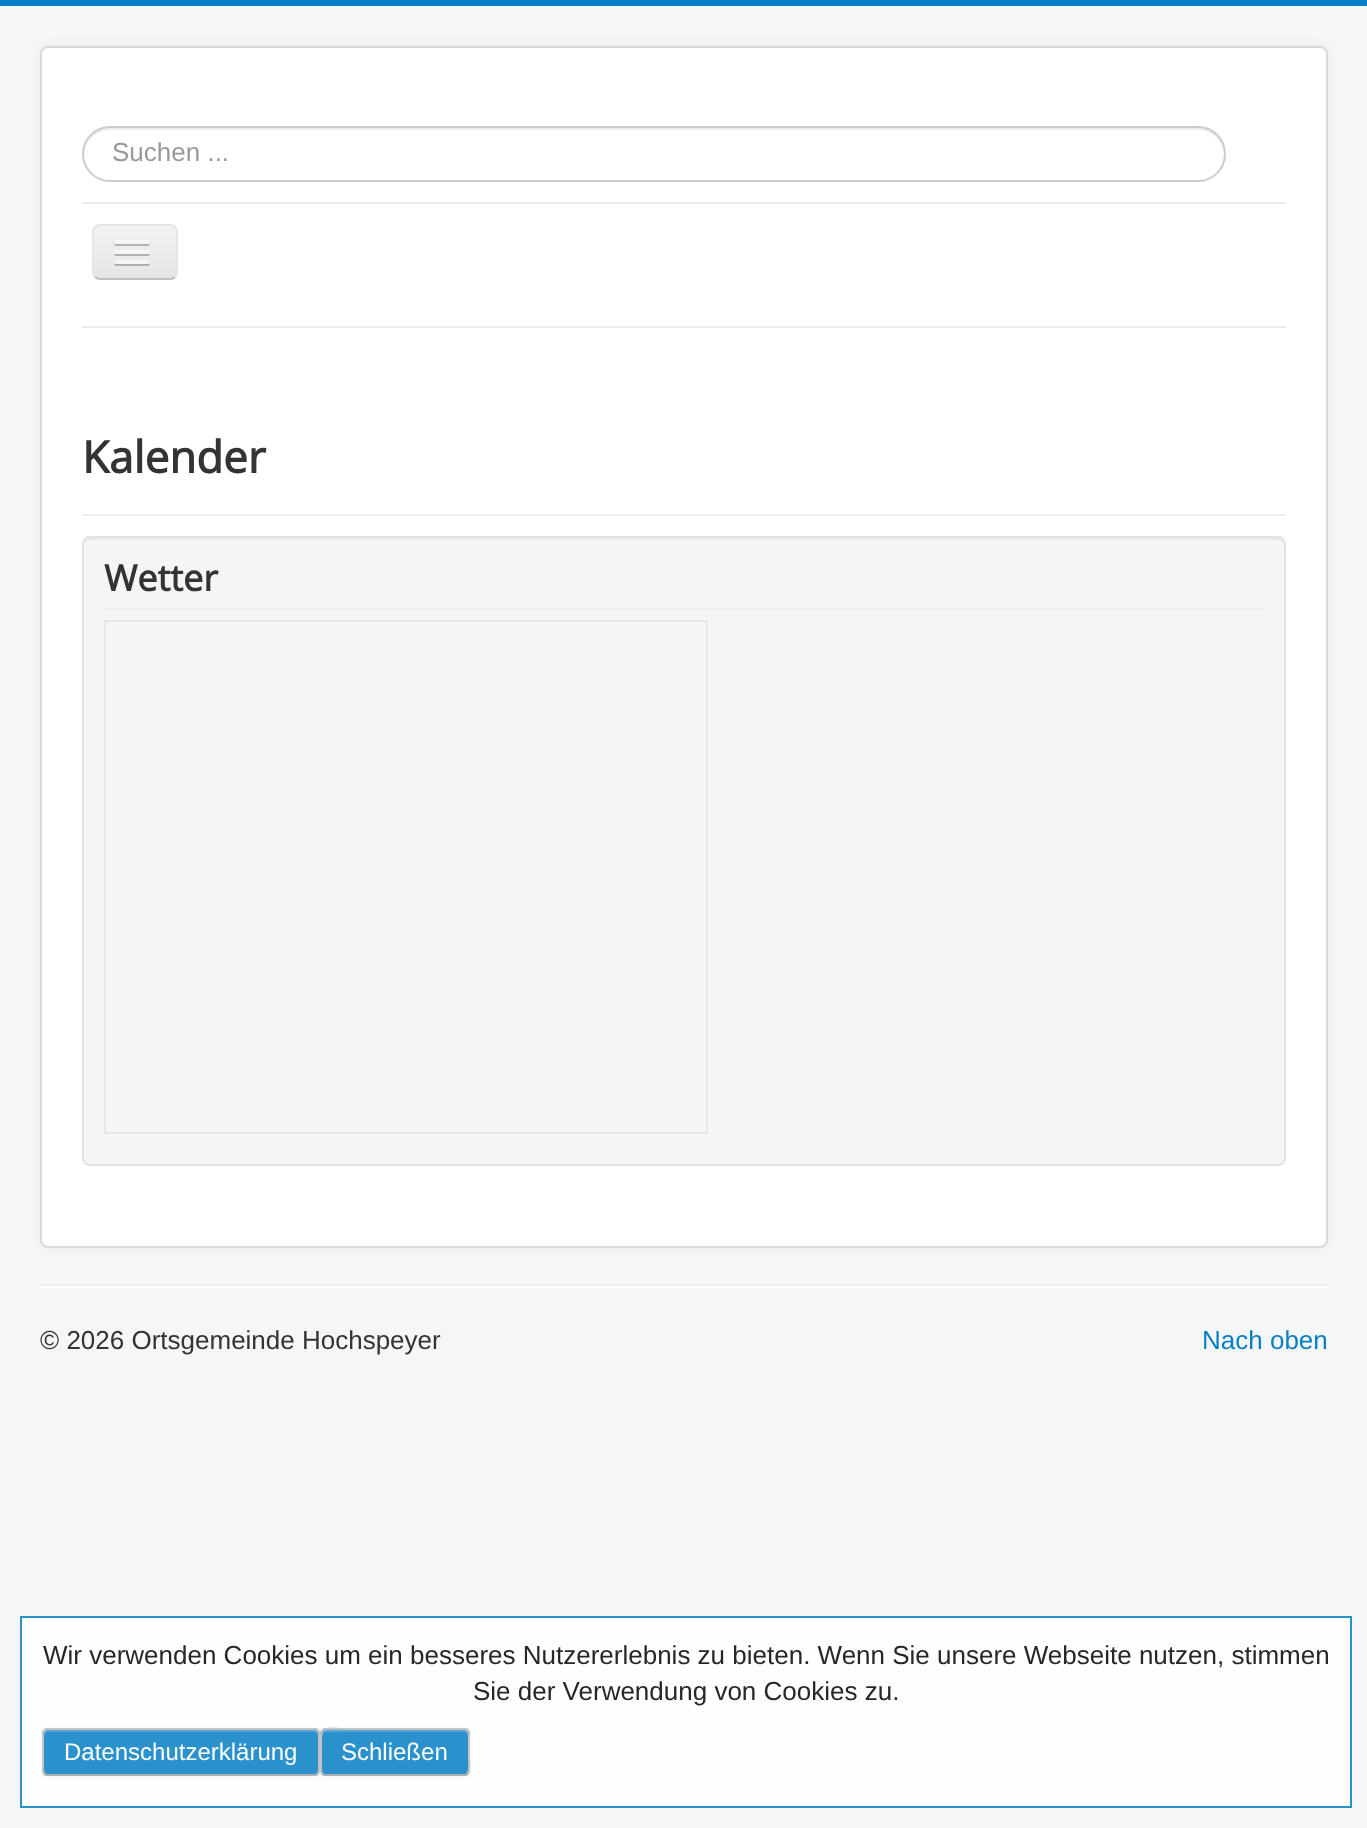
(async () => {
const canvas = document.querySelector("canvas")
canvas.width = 1367
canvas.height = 1828
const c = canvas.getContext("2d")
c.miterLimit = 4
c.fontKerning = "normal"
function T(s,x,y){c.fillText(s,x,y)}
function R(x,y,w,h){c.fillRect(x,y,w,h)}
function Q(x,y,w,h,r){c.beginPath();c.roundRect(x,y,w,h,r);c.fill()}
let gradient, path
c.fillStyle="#f4f6f7"
R(0,0,1367,1828)
c.fillStyle="#087fc4"
R(0,0,1367,6)
c.fillStyle="#0000000d"
c.filter="blur(6px)"
c.beginPath()
c.roundRect(40,46,1288,1202,8)
c.fill()
c.filter="none"
c.fillStyle="#fff"
Q(40,46,1288,1202,8)
c.beginPath()
c.roundRect(41,47,1286,1200,7)
c.strokeStyle="#00000026"
c.lineWidth=2
c.stroke()
c.fillStyle="#ececec"
path = new Path2D("M110 130h1088c14 0 25 11 26 25c1-15-11-27-26-27h-1088c-15 0-27 12-26 27c1-14 12-25 26-25z")
c.fill(path)
c.beginPath()
c.roundRect(83,127,1142,54,27)
c.strokeStyle="#ccc"
c.stroke()
c.font="26px Liberation Sans"
c.fillStyle="#999"
T("Suchen ...",112,161)
c.fillStyle="#ececec"
R(82,202,1204,2)
R(82,326,1204,2)
c.save()
c.beginPath()
c.roundRect(92,224,86,56,8)
c.clip()
gradient = c.createLinearGradient(135,226,135,278)
gradient.addColorStop(0,"#f2f2f2")
gradient.addColorStop(1,"#e6e6e6")
c.fillStyle = gradient
R(92,226,86,52)
c.restore()
c.fillStyle="#f3f3f3"
path = new Path2D("M100 228h70c3 0 6 3 6 6c0-11-9-8-18-8h-46c-9 0-18-3-18 8c0-3 3-6 6-6z")
c.fill(path)
path = new Path2D("M175 277c-1.5 1.5-3 2-5 2h-70c-2 0-3.5-.5-5-2")
c.strokeStyle="#bfbfbf"
c.stroke(path)
path = new Path2D("M95 277c-1.5-1.5-2-3-2-5v-40c0-2 .5-3.5 2-5c1.5-1.5 3-2 5-2h70c2 0 3.5 .5 5 2c1.5 1.5 2 3 2 5v40c0 2-.5 3.5-2 5")
c.strokeStyle="#e6e6e6"
c.stroke(path)
c.fillStyle="#b3b3b3"
path = new Path2D("M114.5 243c-2.5 4 6.5 3 7 3h21c.5 0 9.5 1 7-3c0 .5-1 1-1.5 1h-32c-.5 0-1.5-.5-1.5-1z")
c.fill(path)
c.fillStyle="#f5f5f5"
Q(114,240,36,4,2)
c.fillStyle="#b0b0b0"
path = new Path2D("M114.5 253c-2.5 4 6.5 3 7 3h21c.5 0 9.5 1 7-3c0 .5-1 1-1.5 1h-32c-.5 0-1.5-.5-1.5-1z")
c.fill(path)
c.fillStyle="#f5f5f5"
Q(114,250,36,4,2)
c.fillStyle="#afafaf"
path = new Path2D("M114.5 263c-2.5 4 6.5 3 7 3h21c.5 0 9.5 1 7-3c0 .5-1 1-1.5 1h-32c-.5 0-1.5-.5-1.5-1z")
c.fill(path)
c.fillStyle="#f5f5f5"
Q(114,260,36,4,2)
c.fillStyle="#eee"
R(82,514,1204,2)
c.font="bold 44px Open Sans"
c.fillStyle="#333"
T("Kalender",82,473)
c.fillStyle="#f5f5f5"
Q(82,536,1204,630,8)
c.fillStyle="#e9e9e9"
path = new Path2D("M90 540h1188c3 0 6 3 6 6v-2c0-3-3-6-6-6h-1188c-3 0-6 3-6 6v2c0-3 3-6 6-6z")
c.fill(path)
c.beginPath()
c.roundRect(83,537,1202,628,7)
c.strokeStyle="#e3e3e3"
c.stroke()
c.fillStyle="#eee"
R(104,608,1160,2)
c.font="bold 36px Open Sans"
c.fillStyle="#333"
T("Wetter",104,591)
c.strokeStyle="#e5e8e8"
c.strokeRect(105,621,602,512)
c.fillStyle="#eee"
R(40,1284,1288,2)
c.fillStyle="#fff"
R(40,1286,1288,2)
c.font="26px Liberation Sans"
c.fillStyle="#333"
T("© 2026 Ortsgemeinde Hochspeyer",40,1349)
c.fillStyle="#087fc4"
T("Nach oben",1202,1349)
c.fillStyle="#fdfefe"
c.beginPath()
c.rect(21,1617,1330,190)
c.fill()
c.strokeStyle="#2b91cc"
c.stroke()
c.fillStyle="#272728"
T("Wir verwenden Cookies um ein besseres Nutzererlebnis zu bieten. Wenn Sie unsere Webseite nutzen, stimmen",43,1664)
T("Sie der Verwendung von Cookies zu.",473,1700)
c.fillStyle="#2525250d"
c.filter="blur(2px)"
c.beginPath()
c.roundRect(42,1730,278,48,6)
c.fill()
c.filter="none"
c.fillStyle="#2b91cc"
Q(42,1728,278,48,6)
c.fillStyle="#55a7d6"
path = new Path2D("M48 1732h266c2 0 4 2 4 4c0-3 0-6-4-6h-266c-4 0-4 3-4 6c0-2 2-4 4-4z")
c.fill(path)
path = new Path2D("M317.5 1773.5c-1 1-2 1.5-3.5 1.5h-266c-1.5 0-2.5-.5-3.5-1.5")
c.strokeStyle="#aeafaf"
c.stroke(path)
path = new Path2D("M44.5 1773.5c-1-1-1.5-2-1.5-3.5v-36c0-1.5 .5-2.5 1.5-3.5c1-1 2-1.5 3.5-1.5h266c1.5 0 2.5 .5 3.5 1.5c1 1 1.5 2 1.5 3.5v36c0 1.5-.5 2.5-1.5 3.5")
c.strokeStyle="#c4c4c4"
c.stroke(path)
c.font="24px Liberation Sans"
c.fillStyle="#fdfefe"
T("Datenschutzerklärung",64,1760)
c.fillStyle="#2525250d"
c.filter="blur(2px)"
c.beginPath()
c.roundRect(320,1730,150,48,6)
c.fill()
c.filter="none"
c.fillStyle="#2b91cc"
Q(320,1728,150,48,6)
c.fillStyle="#55a7d6"
path = new Path2D("M326 1732h138c2 0 4 2 4 4v-2c0-2-2-4-4-4h-138c-2 0-4 2-4 4v2c0-2 2-4 4-4z")
c.fill(path)
path = new Path2D("M467.5 1773.5c-1 1-2 1.5-3.5 1.5h-138c-1.5 0-2.5-.5-3.5-1.5")
c.strokeStyle="#aeafaf"
c.stroke(path)
path = new Path2D("M322.5 1773.5c-2.5-2.5-1.5-7-1.5-9.5v-12c0-28.5-3.5-23 28-23h115c6 0 5 7 5 11v18c0 3.5 1.5 12.5-1.5 15.5")
c.strokeStyle="#c4c4c4"
c.stroke(path)
c.fillStyle="#fdfefe"
T("Schließen",341,1760)
})()
